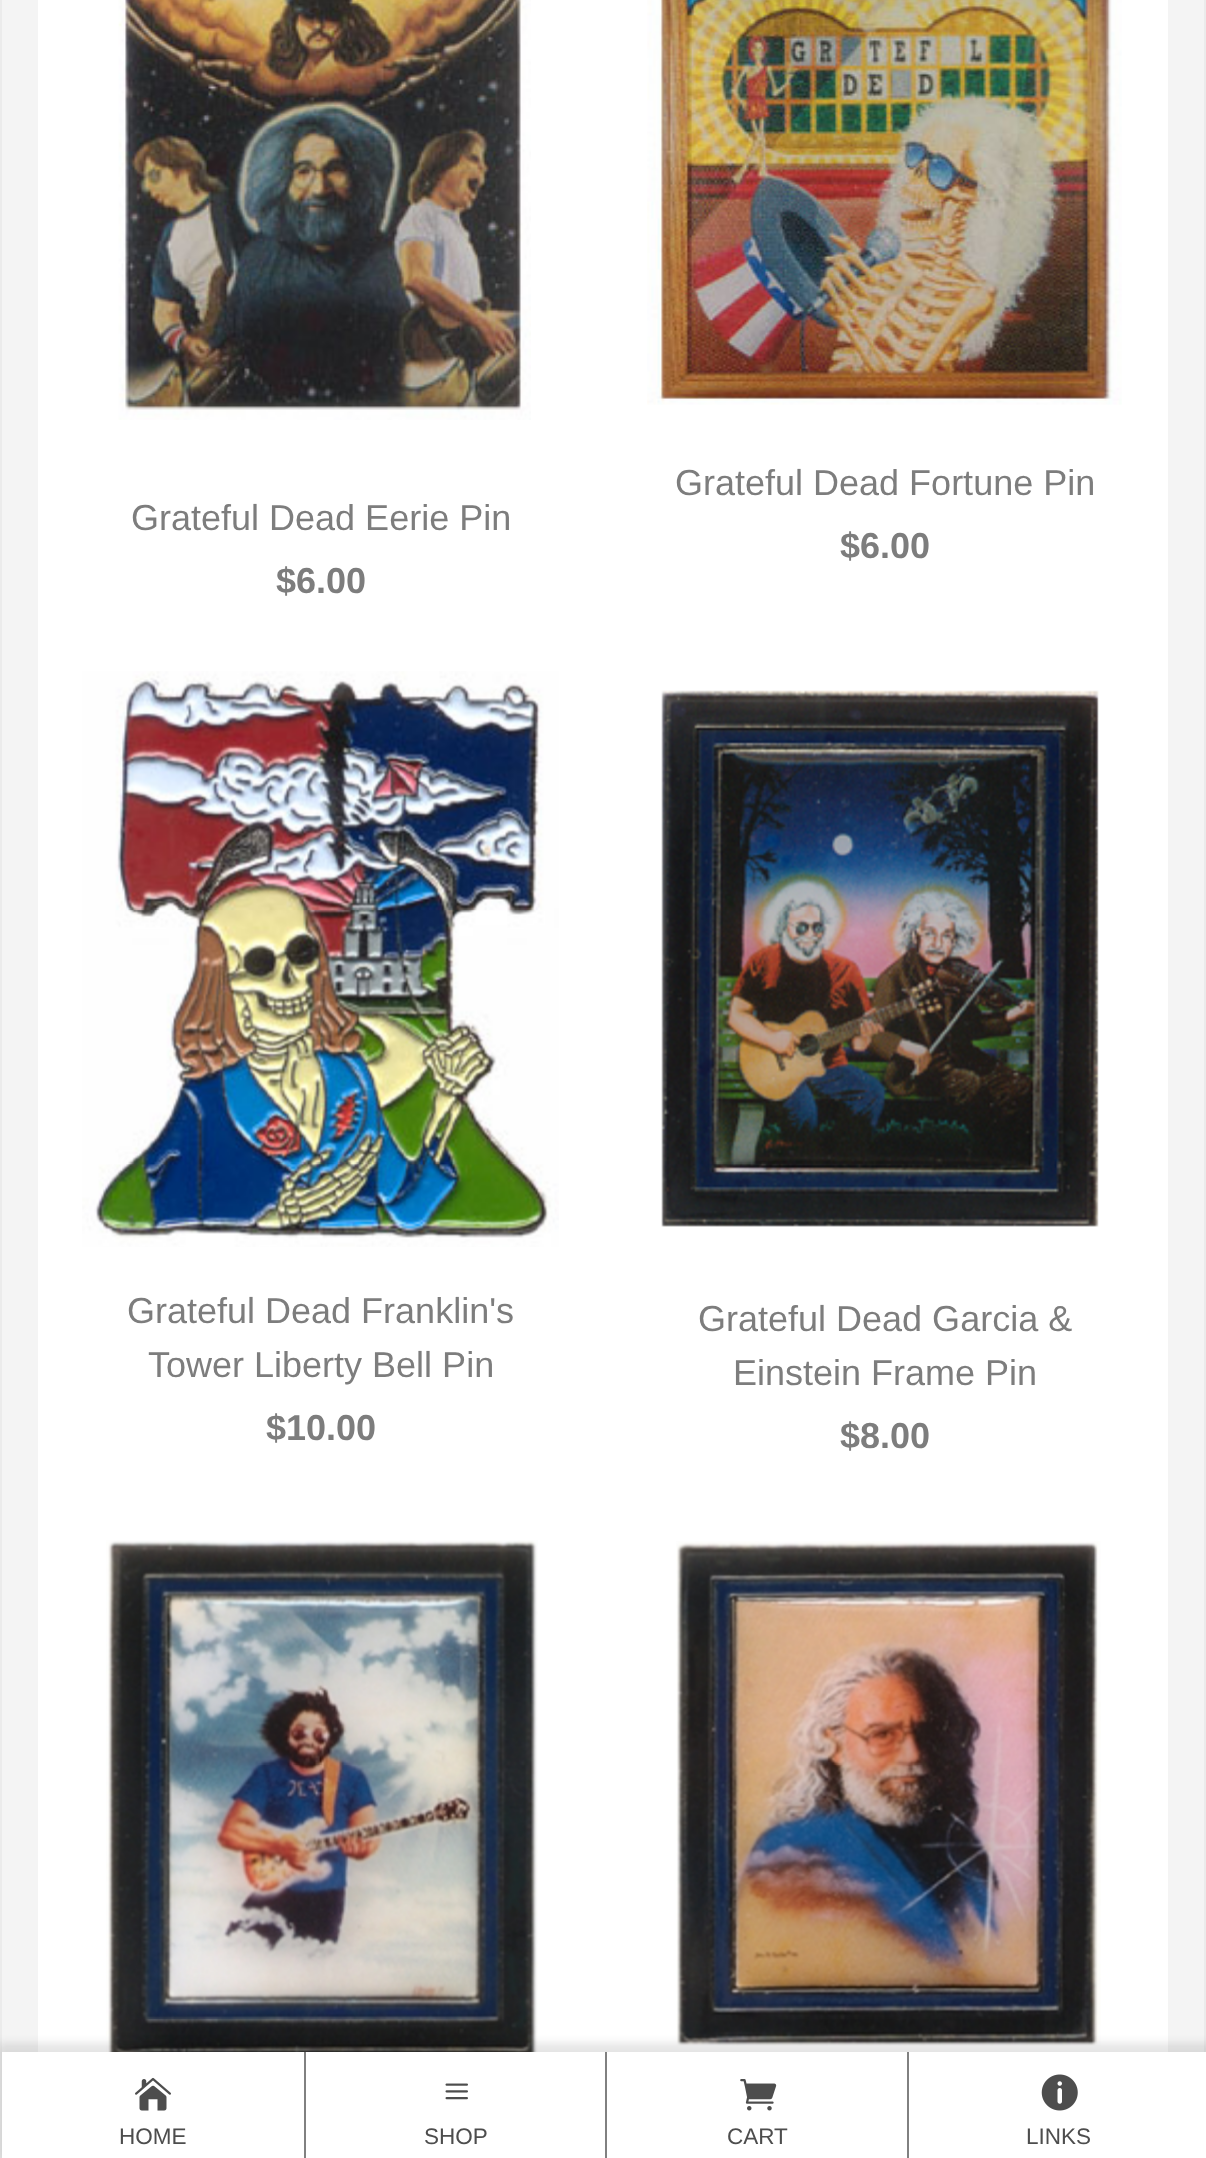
(async () => {
const canvas = document.querySelector("canvas")
canvas.width = 1206
canvas.height = 2158
const c = canvas.getContext("2d")
c.miterLimit = 4
c.fontKerning = "normal"
function T(s,x,y){c.fillText(s,x,y)}
function R(x,y,w,h){c.fillRect(x,y,w,h)}
async function I(src,x,y,w,h){const img=new Image();img.src=src;await img.decode();c.drawImage(img,x,y,w,h)}
c.fillStyle="#f4f4f4"
R(0,0,1206,2158)
c.fillStyle="#ebebeb"
R(1204,0,2,2052)
R(0,0,2,2158)
c.fillStyle="#fff"
R(38,0,1130,2052)
await I("1.png",118,0,413,420)
c.font="36px Liberation Sans"
c.fillStyle="#7d7d7d"
T("Grateful Dead Eerie Pin",131,530)
c.font="bold 36px Liberation Sans"
T("$6.00",276,593)
await I("2.png",647,0,475,405)
c.font="36px Liberation Sans"
T("Grateful Dead Fortune Pin",675,495)
c.font="bold 36px Liberation Sans"
T("$6.00",840,558)
await I("3.png",82,671,477,576)
c.font="36px Liberation Sans"
T("Grateful Dead Franklin's",127,1323)
T("Tower Liberty Bell Pin",148,1377)
c.font="bold 36px Liberation Sans"
T("$10.00",266,1440)
await I("4.png",661,690,438,537)
c.font="36px Liberation Sans"
T("Grateful Dead Garcia &",698,1331)
T("Einstein Frame Pin",733,1385)
c.font="bold 36px Liberation Sans"
T("$8.00",840,1448)
await I("5.png",106,1540,432,512)
await I("6.png",676,1541,425,505)
c.fillStyle="#0000001a"
c.filter="blur(4.5px)"
c.beginPath()
c.rect(-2,2043,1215,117)
c.fill()
c.filter="none"
c.fillStyle="#fff"
R(2,2052,1204,106)
await I("7.png",135,2077,36,34)
c.font="22.5px Liberation Sans"
c.fillStyle="#4d4d4d"
T("HOME",119,2144)
c.fillStyle="#818181"
R(304,2052,2,106)
await I("8.png",445,2083,23,17)
c.fillStyle="#4d4d4d"
T("SHOP",424,2144)
c.fillStyle="#818181"
R(605,2052,2,106)
await I("9.png",740,2079,37,32)
c.fillStyle="#4d4d4d"
T("CART",727,2144)
c.fillStyle="#818181"
R(907,2052,2,106)
await I("10.png",1041,2074,37,37)
c.fillStyle="#4d4d4d"
T("LINKS",1026,2144)
})()
